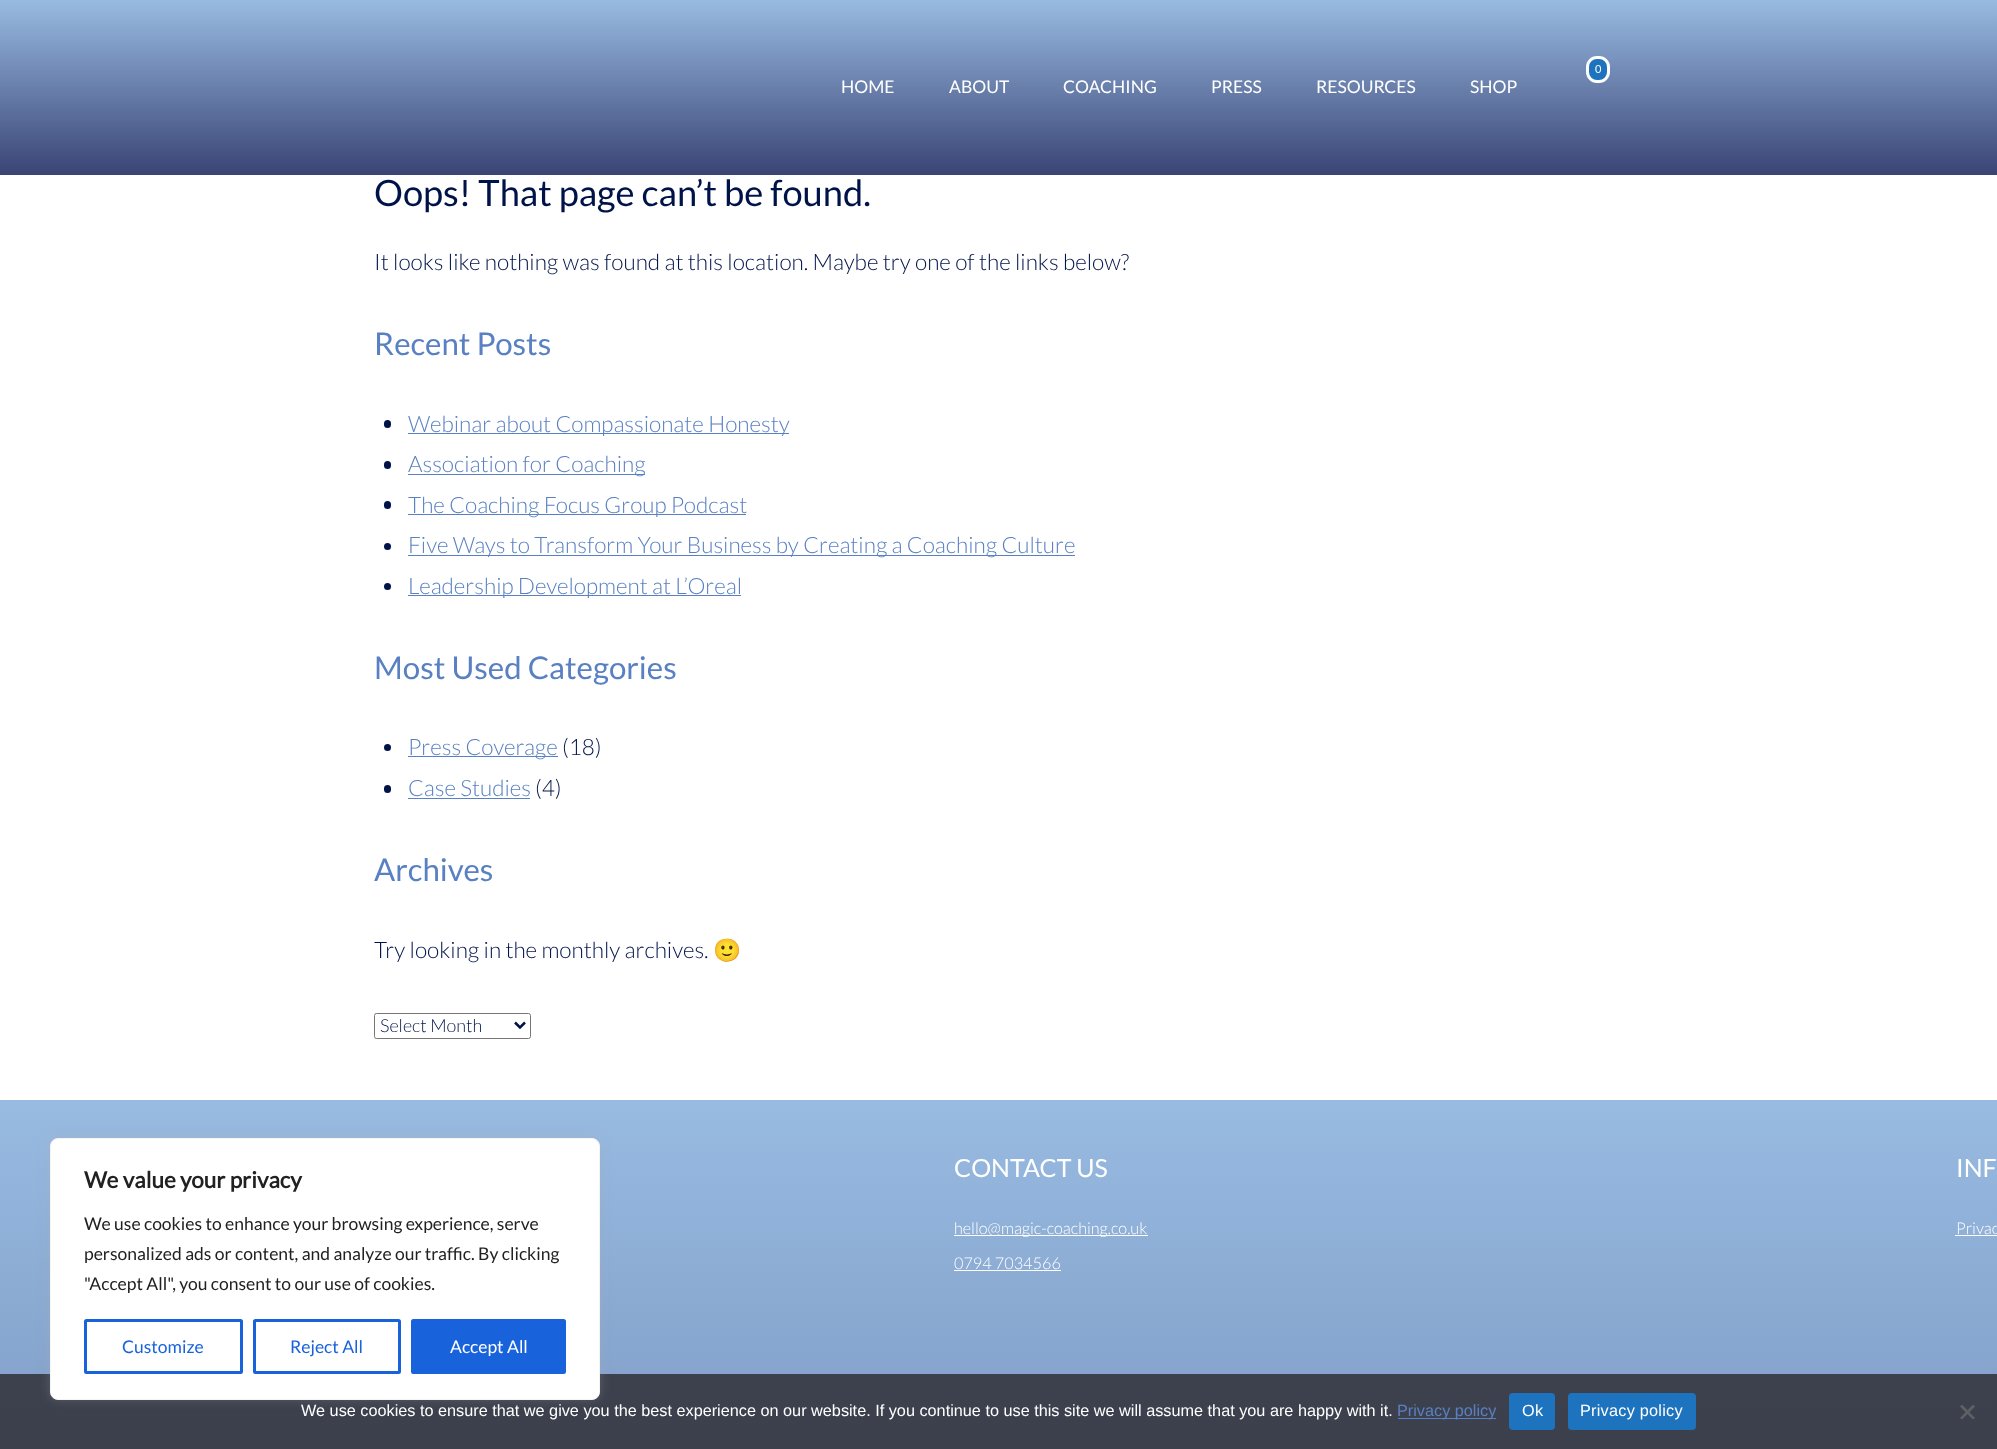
(async () => {
const canvas = document.querySelector("canvas")
canvas.width = 1997
canvas.height = 1449
const c = canvas.getContext("2d")
c.miterLimit = 4
c.fontKerning = "normal"
function T(s,x,y){c.fillText(s,x,y)}
function R(x,y,w,h){c.fillRect(x,y,w,h)}
function Q(x,y,w,h,r){c.beginPath();c.roundRect(x,y,w,h,r);c.fill()}
let gradient, path
c.fillStyle="#fff"
R(0,0,1997,1449)
gradient = c.createLinearGradient(999,1100,999,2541)
gradient.addColorStop(0,"#98bbe2")
gradient.addColorStop(1,"#3a4474")
c.fillStyle = gradient
R(0,1100,1997,274)
gradient = c.createLinearGradient(999,1100,999,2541)
gradient.addColorStop(0,"#3f4450")
gradient.addColorStop(1,"#333442")
c.fillStyle = gradient
R(0,1374,1997,75)
c.fillStyle="#acabab4d"
c.filter="blur(6px)"
c.beginPath()
c.roundRect(50,1136,550,263,8)
c.fill()
c.filter="none"
c.fillStyle="#fff"
c.beginPath()
c.roundRect(50.5,1138.5,549,261,7.5)
c.fill()
c.strokeStyle="#f4f4f4"
c.stroke()
c.font="bold 22.5px Lato"
c.fillStyle="#212121"
T("We value your privacy",84,1188)
c.font="17.5px Lato"
T("We use cookies to enhance your browsing experience, serve",84,1230)
T("personalized ads or content, and analyze our traffic. By clicking",84,1260)
T("\"Accept All\", you consent to our use of cookies.",84,1290)
c.beginPath()
c.roundRect(85.5,1320.5,156,52,1)
c.strokeStyle="#1863dc"
c.lineWidth=3
c.stroke()
c.fillStyle="#1863dc"
T("Customize",122,1353)
c.beginPath()
c.roundRect(254.5,1320.5,145,52,1)
c.stroke()
T("Reject All",290,1353)
c.beginPath()
c.roundRect(412.5,1320.5,152,52,1)
c.fill()
c.stroke()
c.fillStyle="#fff"
T("Accept All",450,1353)
gradient = c.createLinearGradient(999,0,999,175)
gradient.addColorStop(0,"#98bbe2")
gradient.addColorStop(1,"#3a4474")
c.fillStyle = gradient
R(0,0,1997,175)
c.fillStyle="#1e73be"
c.beginPath()
c.roundRect(1587.5,57.5,21,24,9.5)
c.fill()
c.strokeStyle="#fff"
c.stroke()
c.font="11px Lato"
c.fillStyle="#fff"
T("0",1595,73)
c.font="17.5px Lato"
T("HOME",841,93)
T("ABOUT",949,93)
T("COACHING",1063,93)
T("PRESS",1211,93)
T("RESOURCES",1316,93)
T("SHOP",1470,93)
c.font="36.25px Lato"
c.fillStyle="#001349"
T("Oops! That page can’t be found.",374,206)
c.font="300 22.5px Lato"
T("It looks like nothing was found at this location. Maybe try one of the links below?",374,270)
c.font="31.25px Lato"
c.fillStyle="#5980c2"
T("Recent Posts",374,355)
c.fillStyle="#001349"
Q(384,420,7,8,3.5)
c.fillStyle="#5980c2"
R(408,433,381,1)
c.font="300 22.5px Lato"
T("Webinar about Compassionate Honesty",408,432)
c.fillStyle="#001349"
Q(384,461,7,8,3.5)
c.fillStyle="#5980c2"
R(408,474,237,1)
T("Association for Coaching",408,472)
c.fillStyle="#001349"
Q(384,501,7,8,3.5)
c.fillStyle="#5980c2"
R(408,514,338,1)
T("The Coaching Focus Group Podcast",408,513)
c.fillStyle="#001349"
c.beginPath()
c.arc(387.5,546.5,3.5,0,7)
c.fill()
c.fillStyle="#5980c2"
R(408,555,667,1)
T("Five Ways to Transform Your Business by Creating a Coaching Culture",408,553)
c.fillStyle="#001349"
c.beginPath()
c.arc(387.5,586.5,3.5,0,7)
c.fill()
c.fillStyle="#5980c2"
R(408,595,333,1)
T("Leadership Development at L’Oreal",408,594)
c.font="31.25px Lato"
T("Most Used Categories",374,679)
c.fillStyle="#001349"
c.beginPath()
c.arc(387.5,747.5,3.5,0,7)
c.fill()
c.fillStyle="#5980c2"
R(408,756,150,1)
c.font="300 22.5px Lato"
T("Press Coverage",408,755)
c.fillStyle="#001349"
T("(18)",562,755)
Q(384,785,7,8,3.5)
c.fillStyle="#5980c2"
T("Case Studies",408,796)
R(408,798,122,1)
c.fillStyle="#001349"
T("(4)",535,796)
c.font="31.25px Lato"
c.fillStyle="#5980c2"
T("Archives",374,881)
c.font="300 22.5px Lato"
c.fillStyle="#001349"
T("Try looking in the monthly archives.",374,958)
c.font="22.5px Noto Color Emoji"
T("🙂",713,958)
c.beginPath()
c.roundRect(374.5,1013.5,156,25,2)
c.strokeStyle="#767676"
c.lineWidth=1
c.stroke()
path = new Path2D("M515 1022.5l5 5l5-5")
c.strokeStyle="#001349"
c.lineWidth=2.5
c.stroke(path)
c.font="300 18px Lato"
T("Select Month",380,1032)
c.font="25px Lato"
c.fillStyle="#fff"
T("CONTACT US",954,1177)
R(954,1235,194,1)
c.font="300 16.25px Lato"
T("hello@magic-coaching.co.uk",954,1234)
T("0794 7034566",954,1269)
R(954,1270,107,1)
c.font="25px Lato"
T("INF",1956,1177)
c.font="300 16.25px Lato"
T("Privac",1956,1234)
R(1955,1235,42,1)
c.font="16.25px Liberation Sans"
T("We use cookies to ensure that we give you the best experience on our website. If you continue to use this site we will assume that you are happy with it.",301,1416)
c.fillStyle="#5980c2"
R(1398,1418,98,1)
T("Privacy policy",1397,1416)
c.fillStyle="#1e73be"
Q(1509,1393,46,37,4)
c.letterSpacing="0.25px"
c.fillStyle="#fff"
T("Ok",1522,1416)
c.fillStyle="#1e73be"
Q(1568,1393,128,37,4)
c.fillStyle="#fff"
T("Privacy policy",1580,1416)
c.fillStyle="#5e6066"
path = new Path2D("M1973 1404.5l2 2l-13 13l-2-1.5z")
c.fill(path)
path = new Path2D("M1960 1406.5l2-2l13 13.5l-2 1.5z")
c.fill(path)
})()
